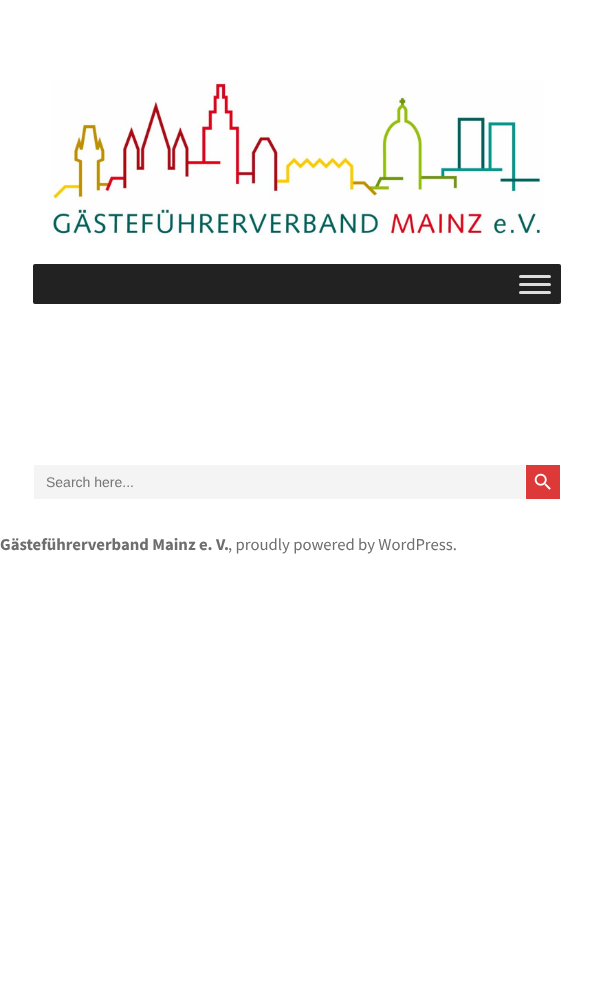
(async () => {
const canvas = document.querySelector("canvas")
canvas.width = 594
canvas.height = 1004
const c = canvas.getContext("2d")
c.miterLimit = 4
c.fontKerning = "normal"
function T(s,x,y){c.fillText(s,x,y)}
function R(x,y,w,h){c.fillRect(x,y,w,h)}
function Q(x,y,w,h,r){c.beginPath();c.roundRect(x,y,w,h,r);c.fill()}
async function I(src,x,y,w,h){const img=new Image();img.src=src;await img.decode();c.drawImage(img,x,y,w,h)}
c.fillStyle="#fff"
R(0,0,594,1004)
await I("1.png",49,80,495,155)
c.fillStyle="#222"
Q(33,264,528,40,2)
c.fillStyle="#ddd"
Q(519,275,32,3,1.5)
Q(519,283,32,3,1.5)
Q(519,291,32,3,1.5)
c.fillStyle="#f4f4f4"
R(34,465,491,34)
c.font="14px Liberation Sans"
c.fillStyle="#757575"
T("Search here...",46,487)
c.fillStyle="#dd3939"
R(526,465,34,34)
await I("2.png",534,473,17,17)
c.font="bold 16.7px Source Sans Pro"
c.fillStyle="#6e6e6e"
T("Gästeführerverband Mainz e. V.",0,550)
c.font="16.7px Source Sans Pro"
T(", proudly powered by WordPress.",228,550)
})()
